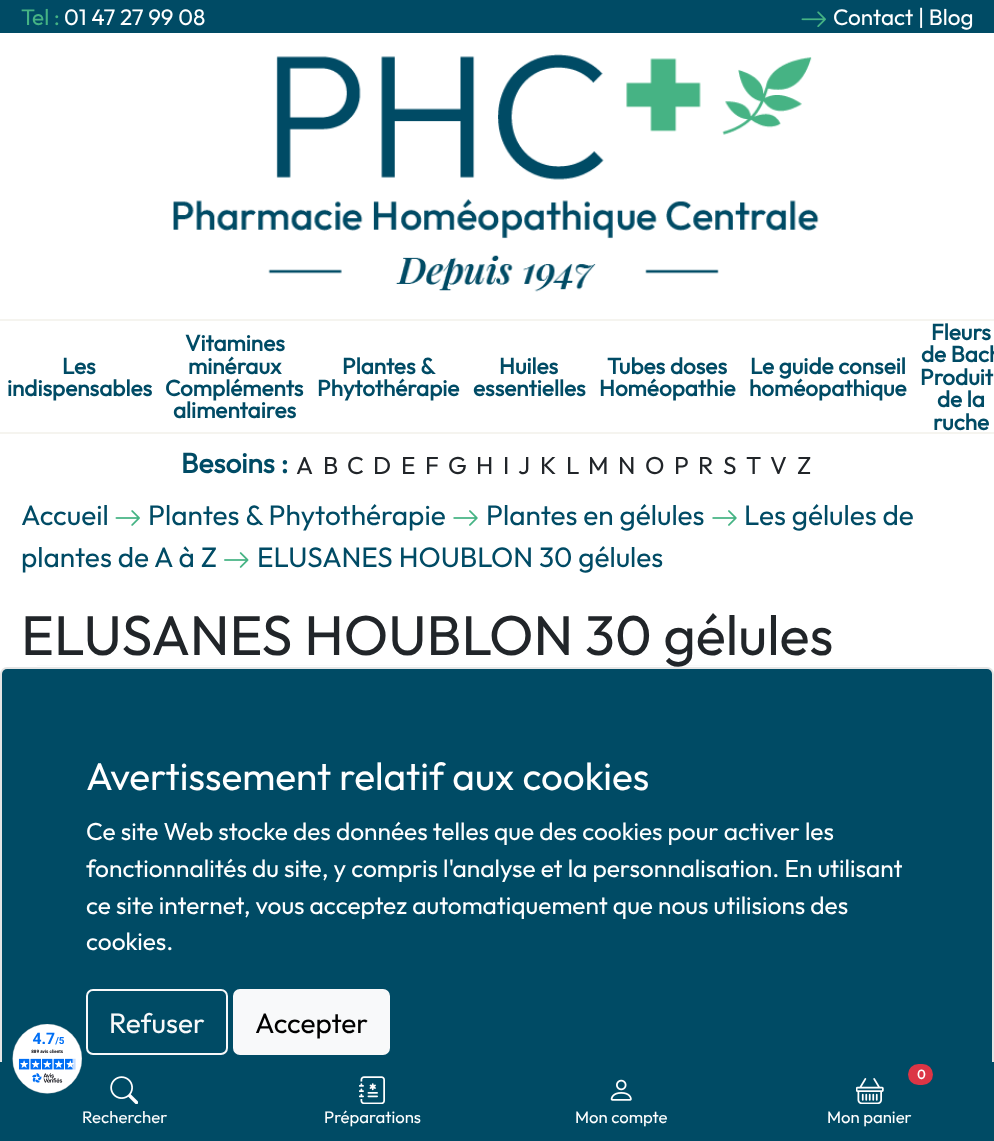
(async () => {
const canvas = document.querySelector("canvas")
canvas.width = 994
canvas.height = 1141
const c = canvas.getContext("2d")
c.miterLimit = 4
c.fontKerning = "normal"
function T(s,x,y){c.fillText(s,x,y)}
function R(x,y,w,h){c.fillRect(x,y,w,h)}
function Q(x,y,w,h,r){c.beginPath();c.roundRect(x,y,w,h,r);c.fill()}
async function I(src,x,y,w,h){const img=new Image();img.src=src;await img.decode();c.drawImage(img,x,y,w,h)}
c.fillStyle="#fff"
R(0,0,994,1141)
c.fillStyle="#004b65"
R(0,0,994,33)
c.font="100 22.5px Outfit"
c.fillStyle="#45b384"
T("Tel :",21,25)
c.fillStyle="#fff"
T("01 47 27 99 08",64,25)
await I("1.png",801,11,25,16)
T("Contact | Blog",833,25)
await I("2.png",173,54,646,238)
c.fillStyle="#f5f4ef"
R(0,319,994,2)
R(0,432,994,2)
c.font="bold 22.5px Outfit"
c.fillStyle="#004b65"
T("Les",62,374)
T("indispensables",7,396)
T("Vitamines",185,351)
T("minéraux",188,374)
T("Compléments",165,396)
T("alimentaires",173,418)
T("Plantes &",342,374)
T("Phytothérapie",317,396)
T("Huiles",499,374)
T("essentielles",473,396)
T("Tubes doses",607,374)
T("Homéopathie",599,396)
T("Le guide conseil",750,374)
T("homéopathique",749,396)
T("Fleurs",931,340)
T("de Bach",921,362)
T("Produit",920,385)
T("de la",937,407)
T("ruche",933,430)
c.font="bold 28px Outfit"
T("Besoins :",181,473)
c.font="100 24.5px Outfit"
c.fillStyle="#212529"
T("A",296,474)
T("B",323,474)
T("C",347,474)
T("D",373,474)
T("E",401,474)
T("F",425,474)
T("G",448,474)
T("H",476,474)
T("I",503,474)
T("J",518,474)
T("K",540,474)
T("L",566,474)
T("M",588,474)
T("N",618,474)
T("O",645,474)
T("P",674,474)
T("R",698,474)
T("S",723,474)
T("T",746,474)
T("V",770,474)
T("Z",797,474)
c.font="100 28px Outfit"
c.fillStyle="#004b65"
T("Accueil",21,525)
await I("3.png",115,510,25,16)
T("Plantes & Phytothérapie",148,525)
await I("4.png",453,510,25,16)
T("Plantes en gélules",486,525)
await I("4.png",712,510,25,16)
T("Les gélules de",744,525)
T("plantes de A à Z",21,567)
await I("5.png",224,552,25,16)
T("ELUSANES HOUBLON 30 gélules",257,567)
c.font="100 56px Outfit"
c.fillStyle="#212529"
T("ELUSANES HOUBLON 30 gélules",21,655)
c.save()
c.beginPath()
c.rect(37,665,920,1)
c.clip()
c.fillStyle="#00000026"
c.filter="blur(14px)"
c.beginPath()
c.roundRect(0,681,994,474,7)
c.fill()
c.filter="none"
c.restore()
c.fillStyle="#004b65"
Q(2,669,990,470,5)
c.beginPath()
c.roundRect(1,668,992,472,6)
c.strokeStyle="#0000001a"
c.lineWidth=2
c.stroke()
R(0,1062,994,79)
await I("6.png",110,1076,28,28)
c.font="100 16.75px Outfit"
c.fillStyle="#fff"
T("Rechercher",82,1123)
await I("7.png",359,1076,26,28)
T("Préparations",324,1123)
await I("8.png",610,1079,22,22)
T("Mon compte",575,1123)
c.fillStyle="#dc3545"
Q(908,1064,25,21,10.5)
c.font="bold 13px Outfit"
c.fillStyle="#fff"
T("0",917,1079)
await I("9.png",856,1078,28,26)
c.font="100 16.75px Outfit"
T("Mon panier",827,1123)
c.font="100 38.7px Outfit"
T("Avertissement relatif aux cookies",86,790)
c.font="100 24.5px Outfit"
T("Ce site Web stocke des données telles que des cookies pour activer les",86,840)
T("fonctionnalités du site, y compris l'analyse et la personnalisation. En utilisant",86,877)
T("ce site internet, vous acceptez automatiquement que nous utilisions des",86,914)
T("cookies.",86,950)
c.beginPath()
c.roundRect(87,990,140,64,6)
c.strokeStyle="#f8f9fa"
c.stroke()
c.font="100 28px Outfit"
c.fillStyle="#f8f9fa"
T("Refuser",109,1033)
c.beginPath()
c.roundRect(234,990,155,64,6)
c.fill()
c.stroke()
c.fillStyle="#000"
T("Accepter",255,1033)
await I("10.png",12,1024,70,70)
})()
